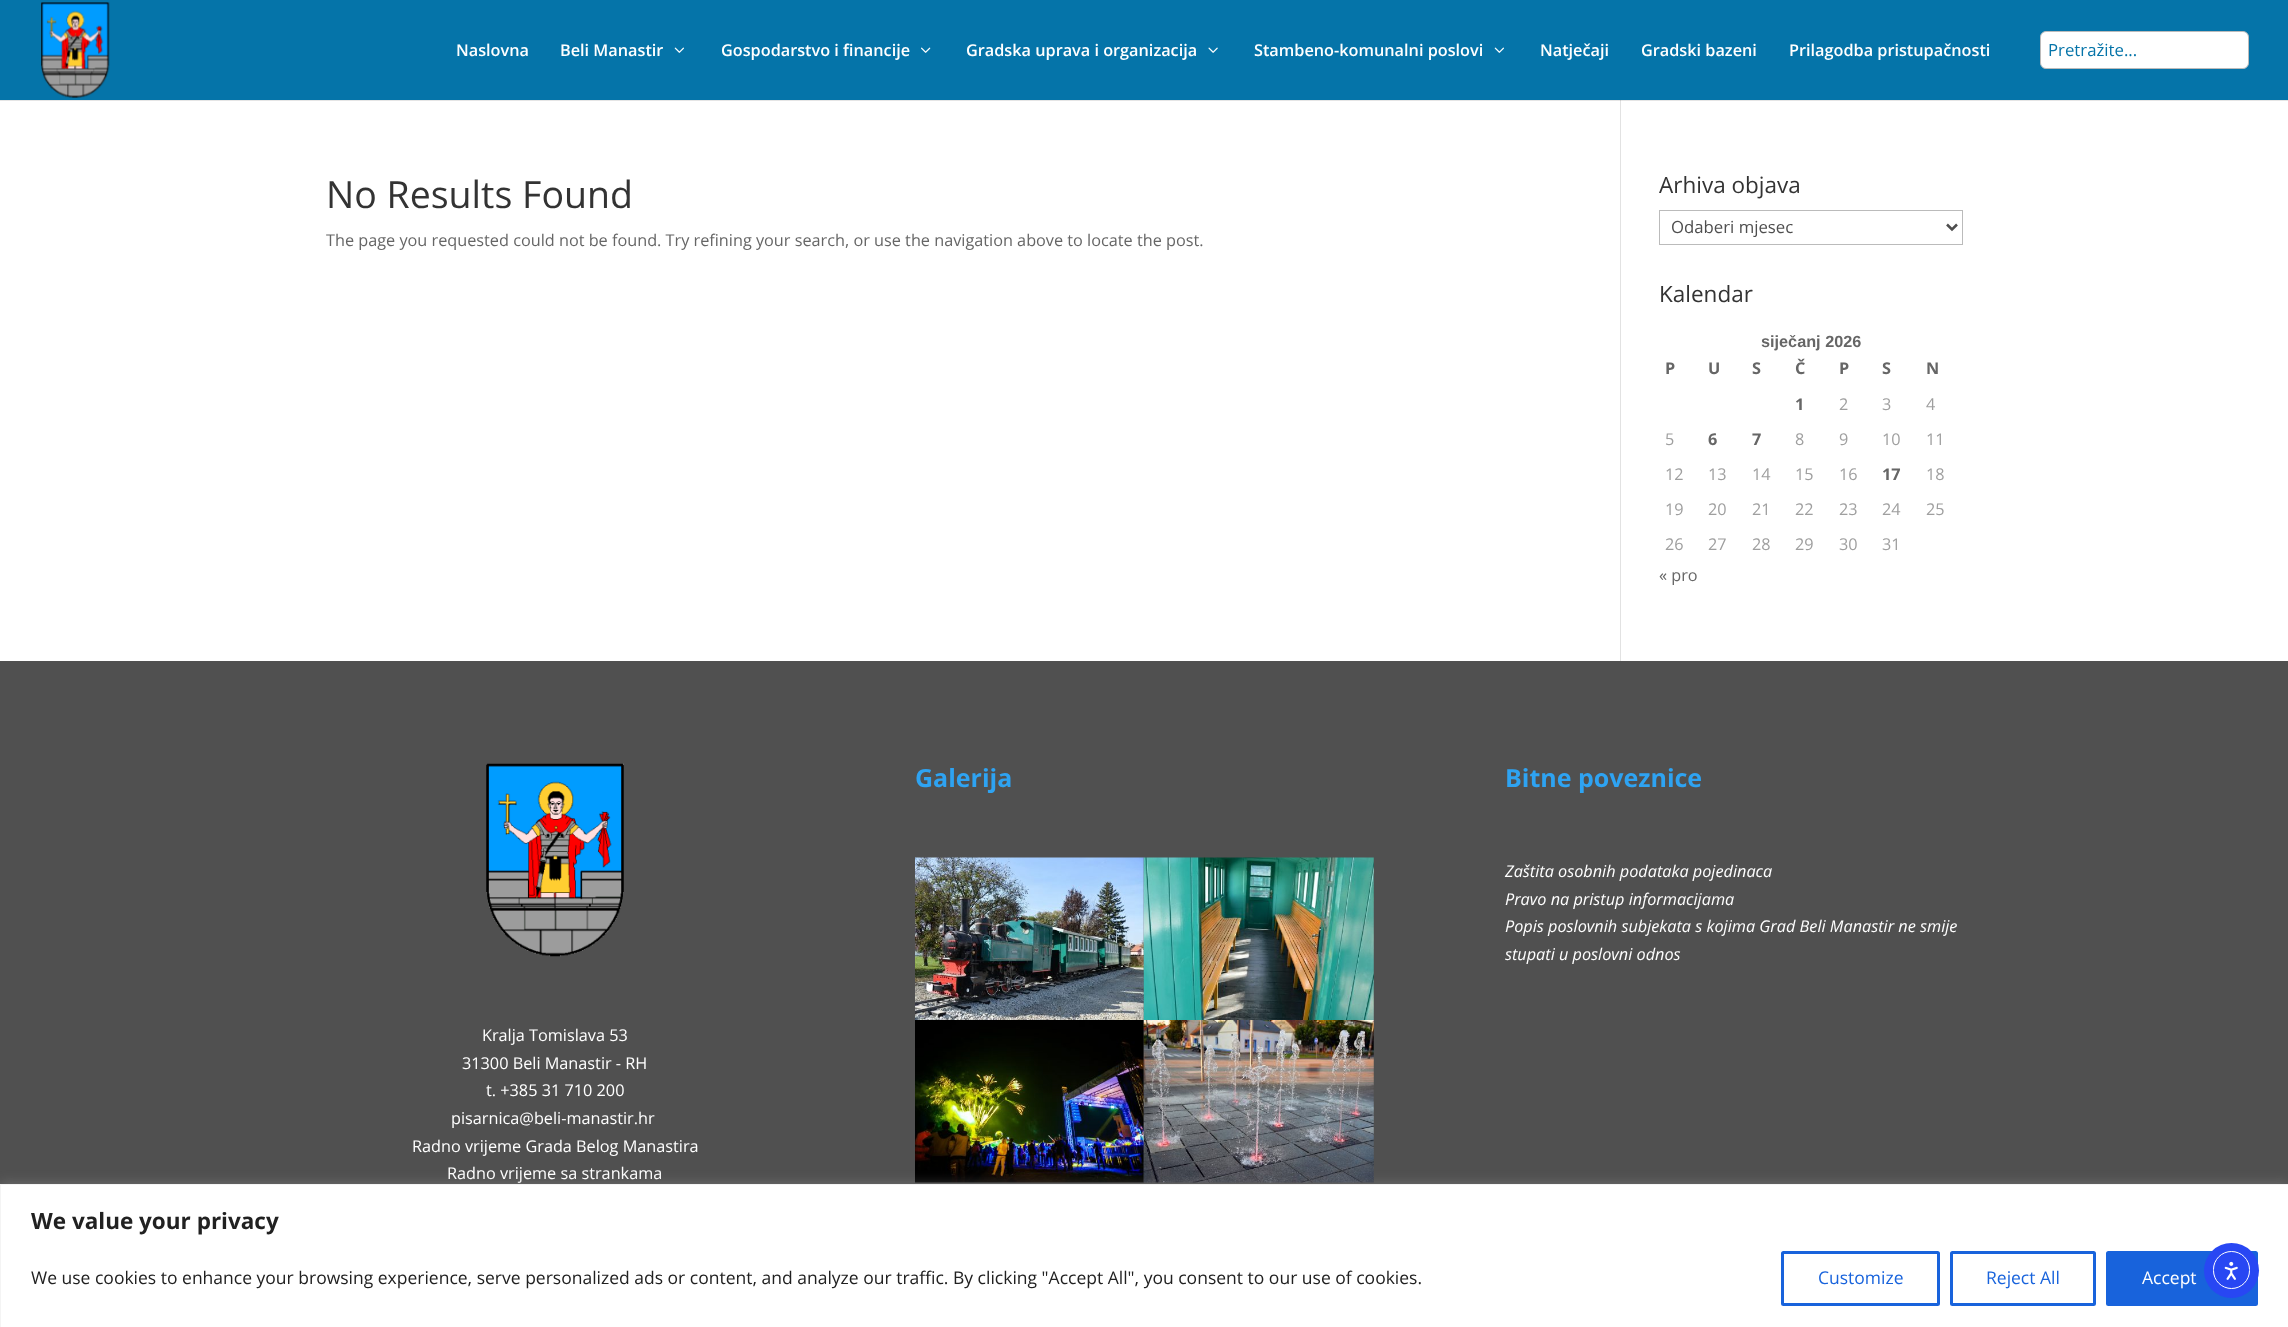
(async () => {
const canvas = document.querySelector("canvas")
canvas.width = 2288
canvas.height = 1327
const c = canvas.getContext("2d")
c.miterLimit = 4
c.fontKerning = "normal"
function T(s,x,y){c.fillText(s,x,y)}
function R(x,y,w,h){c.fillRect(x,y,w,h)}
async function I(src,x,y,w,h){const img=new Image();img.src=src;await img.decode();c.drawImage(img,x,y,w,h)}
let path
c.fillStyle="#fff"
R(0,0,2288,1327)
c.fillStyle="#e2e2e2"
R(1620,100,1,561)
c.fillStyle="#0000001a"
path = new Path2D("M0 100v1h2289v-100v99z")
c.fill(path)
c.fillStyle="#0574a9"
R(0,0,2288,100)
await I("1.png",41,2,69,96)
c.font="600 16.25px Open Sans"
c.fillStyle="#fff"
T("Naslovna",456,56)
T("Beli Manastir",560,56)
await I("2.png",674,47,10,6)
T("Gospodarstvo i financije",721,56)
await I("3.png",921,47,10,6)
T("Gradska uprava i organizacija",966,56)
await I("4.png",1208,47,10,6)
T("Stambeno-komunalni poslovi",1254,56)
await I("2.png",1494,47,10,6)
T("Natječaji",1540,56)
T("Gradski bazeni",1641,56)
T("Prilagodba pristupačnosti",1789,56)
c.beginPath()
c.roundRect(2040.5,31.5,208,37,5.5)
c.fill()
c.strokeStyle="#bbb"
c.stroke()
c.font="16.75px Open Sans"
c.fillStyle="#0574a9"
T("Pretražite...",2048,56)
c.font="37.5px Open Sans"
c.fillStyle="#333"
T("No Results Found",326,208)
c.font="16.25px Open Sans"
c.fillStyle="#666"
T("The page you requested could not be found. Try refining your search, or use the navigation above to locate the post.",326,246)
c.font="22.5px Open Sans"
c.fillStyle="#333"
T("Arhiva objava",1659,193)
c.strokeRect(1659.5,210.5,303,34)
path = new Path2D("M1947 224.5l5 5l5-5")
c.strokeStyle="#4e4e4e"
c.lineWidth=2.5
c.stroke(path)
c.font="16.75px Open Sans"
c.fillStyle="#4e4e4e"
T("Odaberi mjesec",1671,233)
c.font="22.5px Open Sans"
c.fillStyle="#333"
T("Kalendar",1659,302)
c.font="bold 16.25px Liberation Sans"
c.fillStyle="#666"
T("siječanj 2026",1761,347)
c.font="bold 16.25px Open Sans"
T("P",1665,374)
T("U",1708,374)
T("S",1752,374)
T("Č",1795,374)
T("P",1839,374)
T("S",1882,374)
T("N",1926,374)
T("1",1795,410)
c.font="16.25px Open Sans"
c.fillStyle="#9f9f9f"
T("2",1839,410)
T("3",1882,410)
T("4",1926,410)
T("5",1665,445)
c.font="bold 16.25px Open Sans"
c.fillStyle="#666"
T("6",1708,445)
T("7",1752,445)
c.font="16.25px Open Sans"
c.fillStyle="#9f9f9f"
T("8",1795,445)
T("9",1839,445)
T("10",1882,445)
T("11",1926,445)
T("12",1665,480)
T("13",1708,480)
T("14",1752,480)
T("15",1795,480)
T("16",1839,480)
c.font="bold 16.25px Open Sans"
c.fillStyle="#666"
T("17",1882,480)
c.font="16.25px Open Sans"
c.fillStyle="#9f9f9f"
T("18",1926,480)
T("19",1665,515)
T("20",1708,515)
T("21",1752,515)
T("22",1795,515)
T("23",1839,515)
T("24",1882,515)
T("25",1926,515)
T("26",1665,550)
T("27",1708,550)
T("28",1752,550)
T("29",1795,550)
T("30",1839,550)
T("31",1882,550)
c.fillStyle="#666"
T("« pro",1659,581)
c.fillStyle="#505050"
R(0,661,2288,523)
c.font="bold 25px Open Sans"
c.fillStyle="#2ea3f2"
T("Galerija",915,787)
await I("5.png",915,857,229,163)
await I("6.png",1143,857,231,163)
await I("7.png",915,1020,229,163)
await I("8.png",1143,1020,231,163)
T("Bitne poveznice",1505,787)
c.font="italic 16.25px Open Sans"
c.fillStyle="#fff"
T("Zaštita osobnih podataka pojedinaca",1505,877)
T("Pravo na pristup informacijama",1505,905)
T("Popis poslovnih subjekata s kojima Grad Beli Manastir ne smije",1505,932)
T("stupati u poslovni odnos",1505,960)
await I("9.png",486,763,138,194)
c.font="16.25px Open Sans"
T("Kralja Tomislava 53",482,1041)
T("31300 Beli Manastir - RH",462,1069)
T("t. +385 31 710 200",486,1096)
T("pisarnica@beli-manastir.hr",451,1124)
T("Radno vrijeme Grada Belog Manastira",412,1152)
T("Radno vrijeme sa strankama",447,1179)
c.fillStyle="#acabab4d"
c.filter="blur(6px)"
c.beginPath()
c.rect(0,1183,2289,143)
c.fill()
c.filter="none"
c.fillStyle="#fff"
c.beginPath()
c.rect(.5,1184.5,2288,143)
c.fill()
c.strokeStyle="#f4f4f4"
c.lineWidth=1
c.stroke()
c.font="bold 22.5px Open Sans"
c.fillStyle="#212121"
T("We value your privacy",31,1229)
c.font="17.5px Open Sans"
T("We use cookies to enhance your browsing experience, serve personalized ads or content, and analyze our traffic. By clicking \"Accept All\", you consent to our use of cookies.",31,1284)
c.beginPath()
c.roundRect(1782.5,1252.5,156,52,1)
c.strokeStyle="#1863dc"
c.lineWidth=3
c.stroke()
c.fillStyle="#1863dc"
T("Customize",1818,1284)
c.beginPath()
c.roundRect(1951.5,1252.5,143,52,1)
c.stroke()
T("Reject All",1986,1284)
c.beginPath()
c.roundRect(2107.5,1252.5,149,52,1)
c.fill()
c.stroke()
c.fillStyle="#fff"
T("Accept",2142,1284)
c.fillStyle="#2847f3"
c.beginPath()
c.arc(2231.5,1270.5,27.5,0,7)
c.fill()
c.beginPath()
c.roundRect(2213.5,1251.5,36,37,18)
c.strokeStyle="#fff"
c.lineWidth=1
c.stroke()
await I("10.png",2224,1261,14,19)
})()
